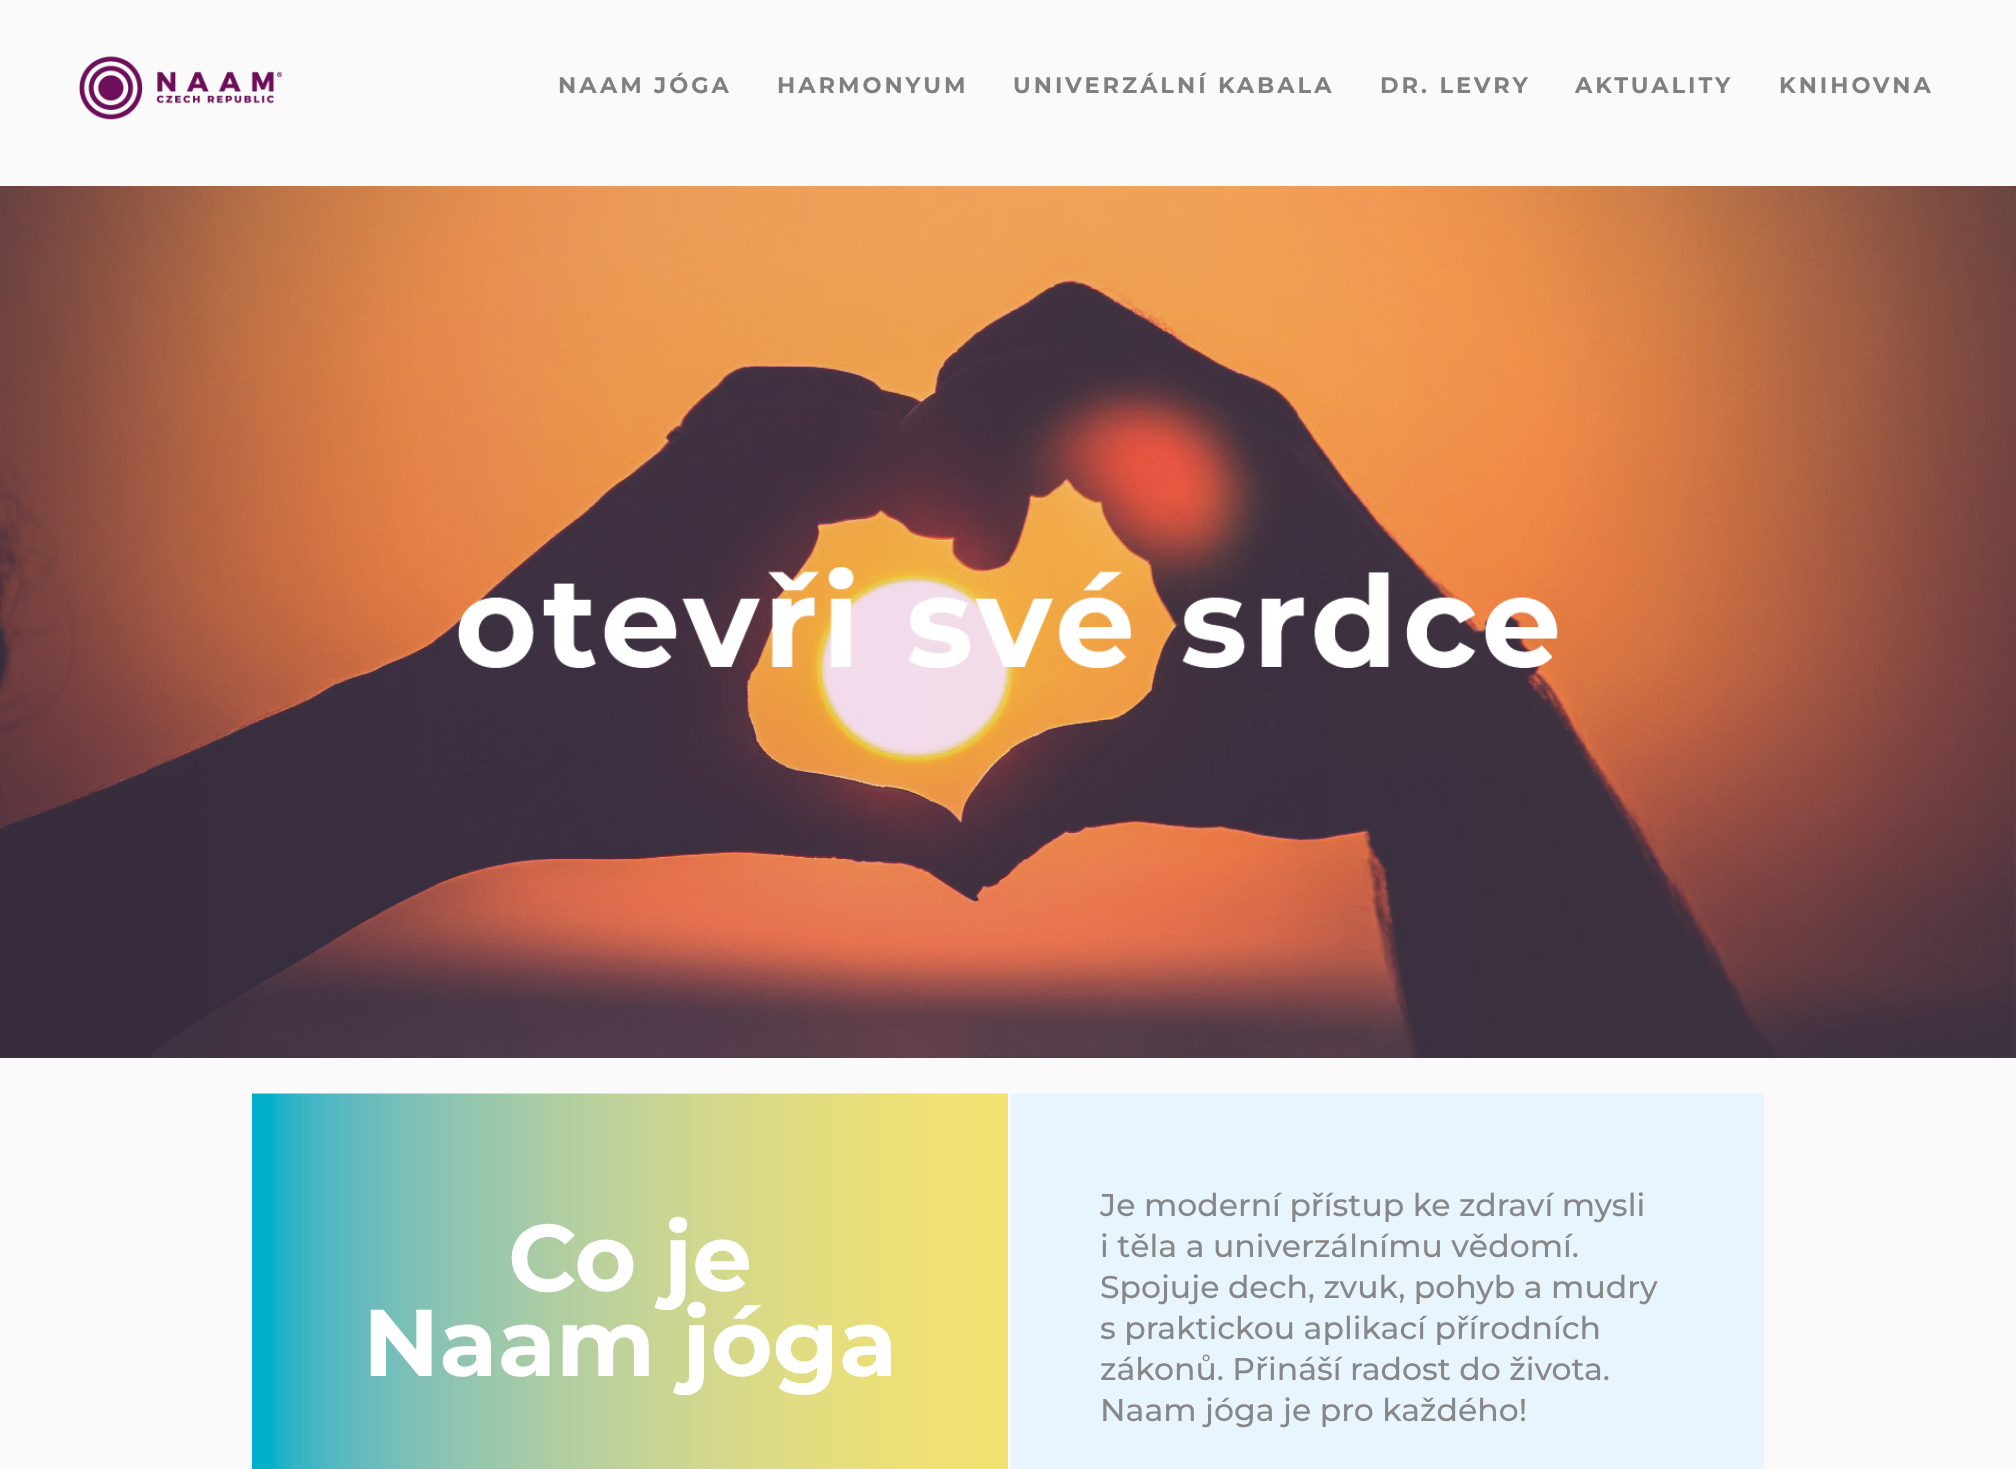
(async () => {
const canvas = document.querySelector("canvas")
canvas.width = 2016
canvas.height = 1469
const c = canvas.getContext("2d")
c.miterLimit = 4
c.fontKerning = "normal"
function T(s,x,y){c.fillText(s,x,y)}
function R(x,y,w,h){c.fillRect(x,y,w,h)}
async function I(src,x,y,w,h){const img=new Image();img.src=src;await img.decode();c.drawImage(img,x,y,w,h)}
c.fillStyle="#f9faf9"
R(0,0,2016,1469)
await I("1.png",79,56,204,64)
c.letterSpacing="3px"
c.font="100 22.5px Montserrat"
c.fillStyle="#808080"
T("NAAM JÓGA",558,93)
T("HARMONYUM",777,93)
T("UNIVERZÁLNÍ KABALA",1013,93)
T("DR. LEVRY",1380,93)
T("AKTUALITY",1575,93)
T("KNIHOVNA",1779,93)
await I("2.png",0,186,2016,872)
await I("3.png",252,1093,756,376)
c.letterSpacing="0px"
c.font="100 94.5px Montserrat"
c.fillStyle="#fff"
T("Co je",508,1291)
T("Naam jóga",363,1376)
c.fillStyle="#e8f5fe"
R(1010,1094,754,375)
c.font="100 31.5px 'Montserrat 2'"
c.fillStyle="#878787"
T("Je moderní přístup ke zdraví mysli",1100,1216)
T("i těla a univerzálnímu vědomí.",1100,1257)
T("Spojuje dech, zvuk, pohyb a mudry",1100,1298)
T("s praktickou aplikací přírodních",1100,1339)
T("zákonů. Přináší radost do života.",1100,1380)
T("Naam jóga je pro každého!",1100,1421)
})()
